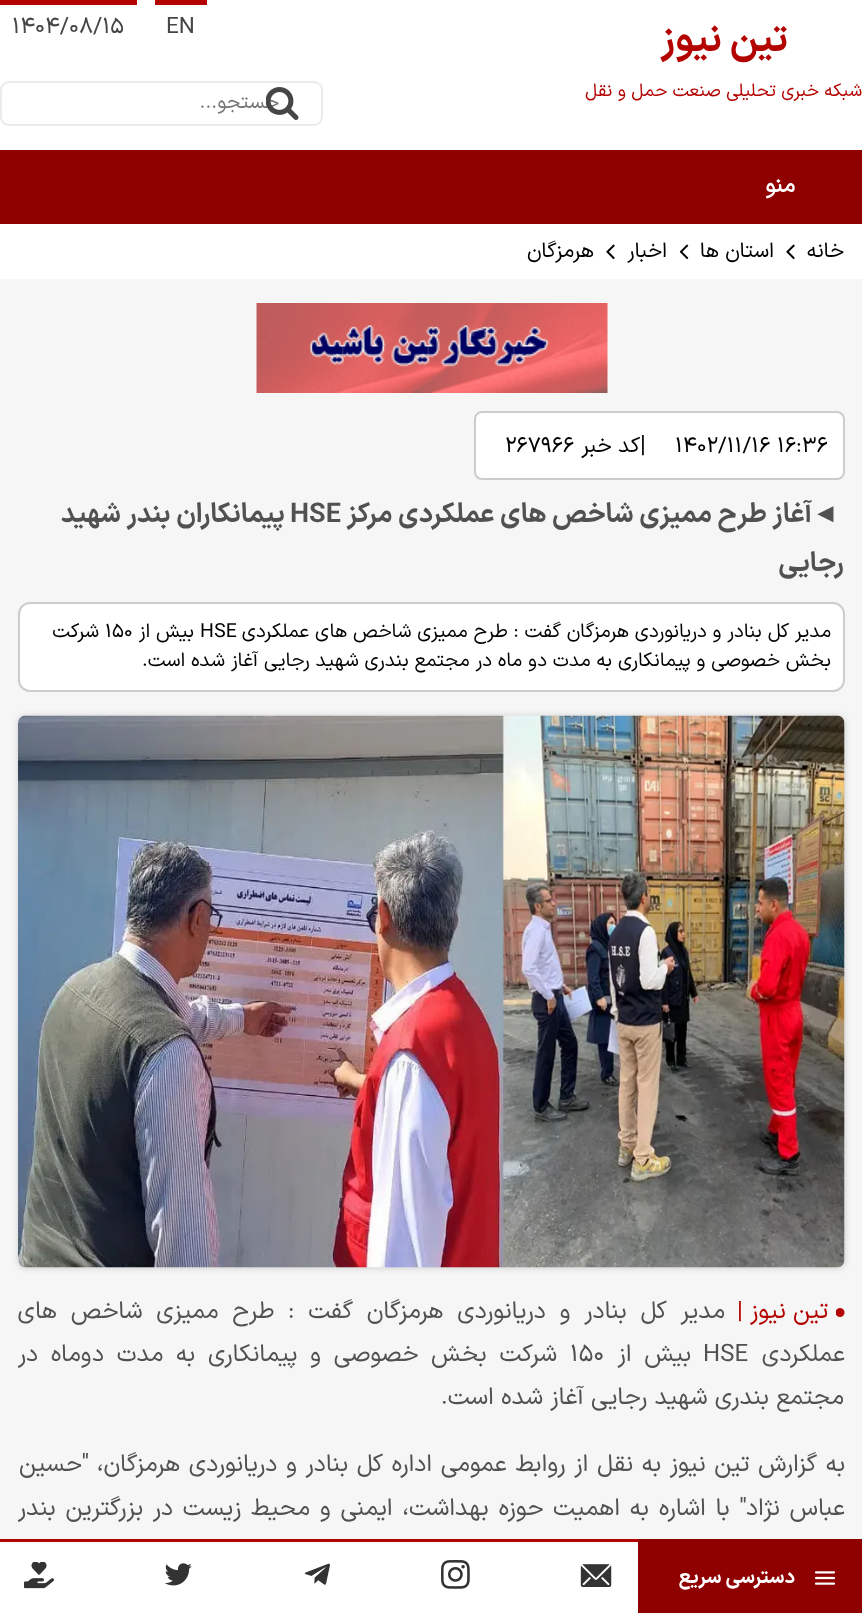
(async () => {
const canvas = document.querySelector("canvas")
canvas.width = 862
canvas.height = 1613
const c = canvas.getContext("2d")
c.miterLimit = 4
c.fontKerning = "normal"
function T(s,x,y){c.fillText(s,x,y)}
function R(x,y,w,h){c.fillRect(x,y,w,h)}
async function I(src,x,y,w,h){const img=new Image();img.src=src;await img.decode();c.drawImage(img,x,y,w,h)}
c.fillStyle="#fff"
R(0,0,862,1613)
c.direction="rtl"
c.font="bold 38.5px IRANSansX"
c.fillStyle="#b30300"
T("تین نیوز",788,51)
c.font="18px IRANSansX"
T("شبکه خبری تحلیلی صنعت حمل و نقل",862,96)
R(155,0,52,5)
c.direction="ltr"
c.font="22.5px IRANSansX"
c.fillStyle="#464646"
T("EN",166,33)
c.fillStyle="#b30300"
R(0,0,137,5)
c.fillStyle="#464646"
T("۱۴۰۴/۰۸/۱۵",12,33)
c.beginPath()
c.roundRect(1,82,321,43,8)
c.strokeStyle="#ebebeb"
c.lineWidth=2
c.stroke()
c.direction="rtl"
c.font="20px IRANSansX"
c.fillStyle="#757575"
T("جستجو...",279,108)
await I("1.png",266,87,33,33)
c.fillStyle="#8e0100"
R(0,150,862,74)
c.font="bold 22.5px 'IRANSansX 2'"
c.fillStyle="#fff"
T("منو",795,192)
c.font="21px IRANSansX"
c.fillStyle="#000"
T("خانه",844,257)
await I("2.png",786,244,9,16)
T("استان ها",774,257)
await I("3.png",680,244,9,16)
T("اخبار",667,257)
await I("2.png",606,244,9,16)
T("هرمزگان",594,257)
c.fillStyle="#f6f6f6"
R(0,279,862,1260)
await I("4.png",256,303,352,90)
c.fillStyle="#fff"
c.beginPath()
c.roundRect(475,412,369,67,7)
c.fill()
c.strokeStyle="#ccc"
c.stroke()
c.direction="ltr"
c.font="21.5px IRANSansX"
c.fillStyle="#000"
T("۱۴۰۲/۱۱/۱۶ ۱۶:۳۶",675,452)
c.font="24px IRANSansX"
T("|",640,452)
c.direction="rtl"
c.font="21.5px IRANSansX"
T("کد خبر",640,452)
c.direction="ltr"
T("۲۶۷۹۶۶",505,452)
c.font="27px Liberation Serif"
c.fillStyle="#515151"
T("◄",812,522)
c.direction="rtl"
c.font="bold 27px IRANSansX"
T("آغاز طرح ممیزی شاخص های عملکردی مرکز",812,522)
c.direction="ltr"
T("HSE",290,522)
c.direction="rtl"
T("پیمانکاران بندر شهید",285,522)
T("رجایی",844,571)
c.fillStyle="#fff"
c.beginPath()
c.roundRect(19,603,825,88,11)
c.fill()
c.stroke()
c.font="19.5px IRANSansX"
c.fillStyle="#000"
T("مدیر کل بنادر و دریانوردی هرمزگان گفت : طرح ممیزی شاخص های عملکردی",831,637)
c.direction="ltr"
T("HSE",200,637)
c.direction="rtl"
T("بیش از",194,637)
c.direction="ltr"
T("۱۵۰",105,637)
c.direction="rtl"
T("شرکت",99,637)
T("بخش خصوصی و پیمانکاری به مدت دو ماه در مجتمع بندری شهید رجایی آغاز شده است.",831,666)
c.fillStyle="#ccc"
c.filter="blur(3px)"
c.beginPath()
c.roundRect(18,716,827,552,8)
c.fill()
c.filter="none"
await I("5.png",18,715,827,553)
c.wordSpacing="6.6px"
c.font="24px IRANSansX"
c.fillStyle="#515151"
T("مدیر کل بنادر و دریانوردی هرمزگان گفت : طرح ممیزی شاخص های",725,1318)
c.wordSpacing="0px"
T("عملکردی",845,1361)
c.direction="ltr"
T("HSE",703,1361)
c.wordSpacing="5.5px"
c.direction="rtl"
T("بیش از",691,1361)
c.wordSpacing="0px"
c.direction="ltr"
T("۱۵۰",570,1361)
c.wordSpacing="5.5px"
c.direction="rtl"
T("شرکت بخش خصوصی و پیمانکاری به مدت دوماه در",557,1361)
c.wordSpacing="0px"
T("مجتمع بندری شهید رجایی آغاز شده است.",844,1404)
await I("6.png",836,1308,9,9)
c.fillStyle="#b30300"
T("تین نیوز",828,1318)
c.direction="ltr"
T("|",737,1318)
c.wordSpacing="1.5px"
c.direction="rtl"
c.fillStyle="#515151"
T("به گزارش تین نیوز به نقل از روابط عمومی اداره کل بنادر و دریانوردی هرمزگان، \"حسین",845,1471)
c.wordSpacing="2.6px"
T("عباس نژاد\" با اشاره به اهمیت حوزه بهداشت، ایمنی و محیط زیست در بزرگترین بندر",845,1515)
c.fillStyle="#b30300"
R(0,1539,638,3)
c.fillStyle="#8e0100"
R(638,1539,224,74)
await I("7.png",814,1571,22,14)
c.wordSpacing="0px"
c.font="bold 20px IRANSansX"
c.fillStyle="#fff"
T("دسترسی سریع",795,1583)
await I("8.png",580,1564,32,23)
await I("9.png",441,1560,29,29)
await I("10.png",304,1563,26,22)
await I("11.png",165,1563,27,23)
await I("12.png",24,1562,30,27)
})()
